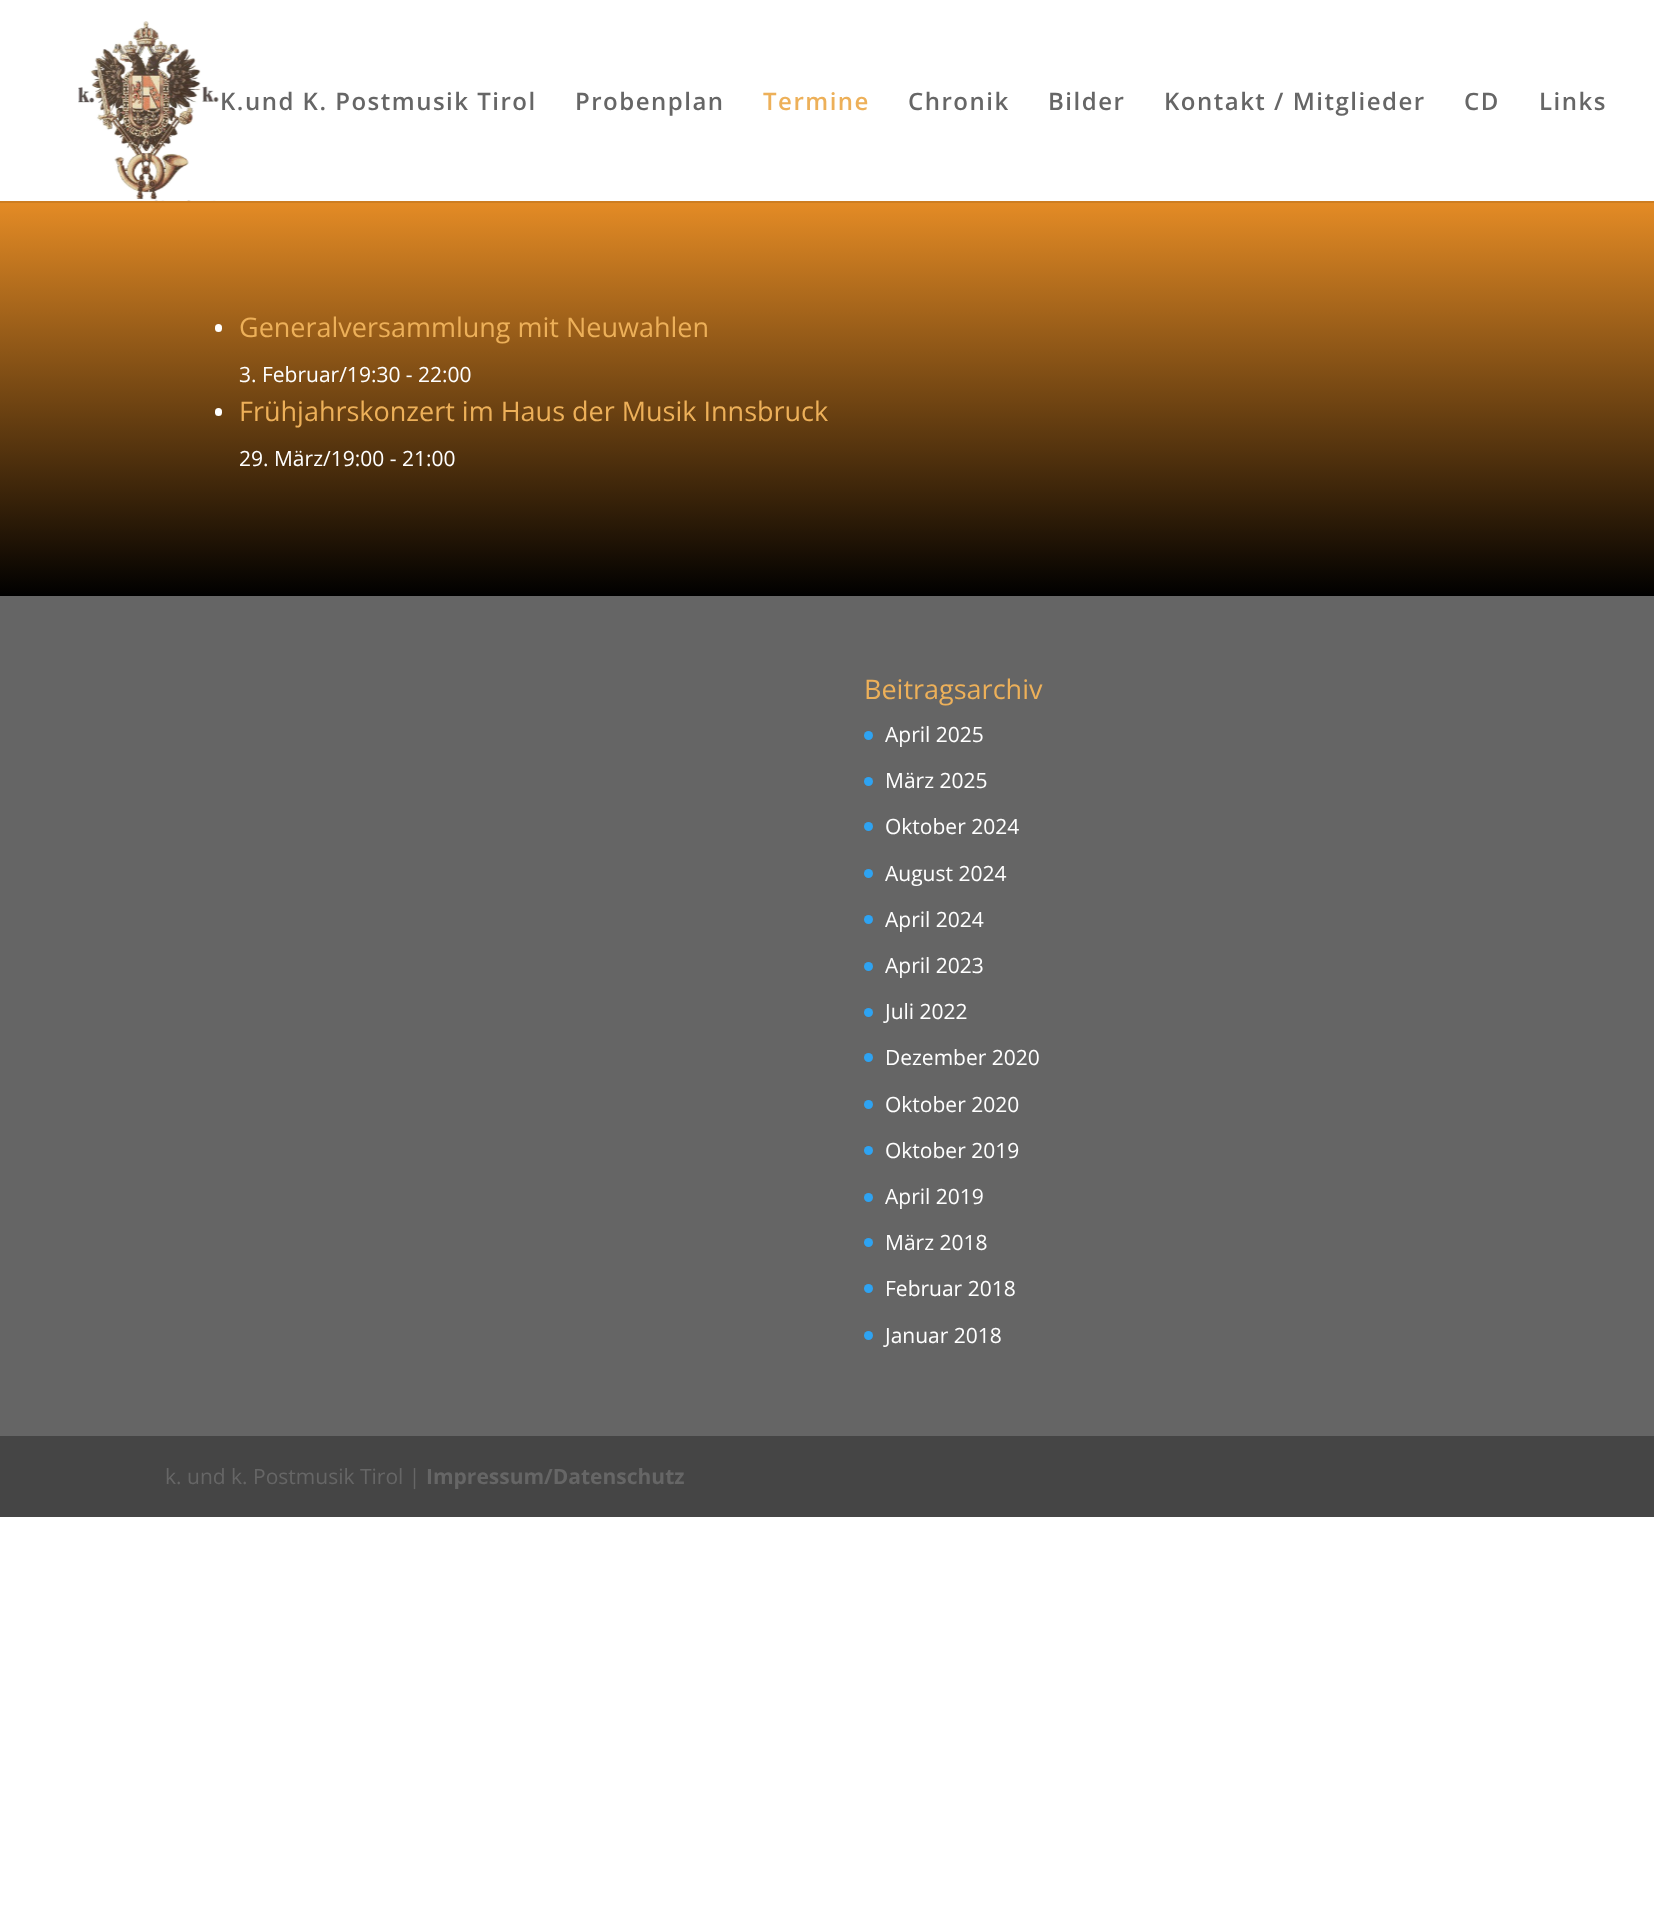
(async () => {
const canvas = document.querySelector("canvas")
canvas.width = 1654
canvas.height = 1924
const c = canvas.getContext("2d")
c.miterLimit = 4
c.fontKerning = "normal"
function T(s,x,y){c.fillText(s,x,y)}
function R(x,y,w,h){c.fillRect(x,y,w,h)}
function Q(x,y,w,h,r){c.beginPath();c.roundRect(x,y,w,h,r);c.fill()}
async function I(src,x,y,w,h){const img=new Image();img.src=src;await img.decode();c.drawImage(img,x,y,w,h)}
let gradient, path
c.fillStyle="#fff"
R(0,0,1654,1924)
c.fillStyle="#cd7d21"
path = new Path2D("M0 201v2h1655v-201h-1v199z")
c.fill(path)
await I("1.png",78,21,141,180)
c.letterSpacing="1.5px"
c.font="600 24px Open Sans"
c.fillStyle="#666"
T("K.und K. Postmusik Tirol",220,110)
T("Probenplan",575,110)
c.fillStyle="#edb059"
T("Termine",763,110)
c.fillStyle="#666"
T("Chronik",908,110)
T("Bilder",1048,110)
T("Kontakt / Mitglieder",1164,110)
T("CD",1464,110)
T("Links",1539,110)
gradient = c.createLinearGradient(827,171,827,596)
gradient.addColorStop(0,"#f69628")
gradient.addColorStop(1,"#000")
c.fillStyle = gradient
R(0,203,1654,393)
c.fillStyle="#fff"
Q(215,324,7,8,3.5)
c.letterSpacing="0px"
c.font="27px Open Sans"
c.fillStyle="#edb059"
T("Generalversammlung mit Neuwahlen",239,337)
c.font="21px Open Sans"
c.fillStyle="#fff"
T("3. Februar/19:30 - 22:00",239,382)
Q(215,408,7,8,3.5)
c.font="27px Open Sans"
c.fillStyle="#edb059"
T("Frühjahrskonzert im Haus der Musik Innsbruck",239,421)
c.font="21px Open Sans"
c.fillStyle="#fff"
T("29. März/19:00 - 21:00",239,466)
c.fillStyle="#656565"
R(0,596,1654,840)
c.font="27px Open Sans"
c.fillStyle="#edb059"
T("Beitragsarchiv",864,699)
c.fillStyle="#2ea3f2"
c.beginPath()
c.arc(868.5,735.5,4.5,0,7)
c.fill()
c.font="21px Open Sans"
c.fillStyle="#fff"
T("April 2025",885,742)
c.fillStyle="#2ea3f2"
c.beginPath()
c.arc(868.5,781.5,4.5,0,7)
c.fill()
c.fillStyle="#fff"
T("März 2025",885,788)
c.fillStyle="#2ea3f2"
c.beginPath()
c.arc(868.5,826.5,4.5,0,7)
c.fill()
c.fillStyle="#fff"
T("Oktober 2024",885,834)
c.fillStyle="#2ea3f2"
c.beginPath()
c.arc(868.5,873.5,4.5,0,7)
c.fill()
c.fillStyle="#fff"
T("August 2024",885,881)
c.fillStyle="#2ea3f2"
c.beginPath()
c.arc(868.5,919.5,4.5,0,7)
c.fill()
c.fillStyle="#fff"
T("April 2024",885,927)
c.fillStyle="#2ea3f2"
c.beginPath()
c.arc(868.5,966.5,4.5,0,7)
c.fill()
c.fillStyle="#fff"
T("April 2023",885,973)
c.fillStyle="#2ea3f2"
c.beginPath()
c.arc(868.5,1012.5,4.5,0,7)
c.fill()
c.fillStyle="#fff"
T("Juli 2022",885,1019)
c.fillStyle="#2ea3f2"
c.beginPath()
c.arc(868.5,1057.5,4.5,0,7)
c.fill()
c.fillStyle="#fff"
T("Dezember 2020",885,1065)
c.fillStyle="#2ea3f2"
c.beginPath()
c.arc(868.5,1104.5,4.5,0,7)
c.fill()
c.fillStyle="#fff"
T("Oktober 2020",885,1112)
c.fillStyle="#2ea3f2"
c.beginPath()
c.arc(868.5,1150.5,4.5,0,7)
c.fill()
c.fillStyle="#fff"
T("Oktober 2019",885,1158)
c.fillStyle="#2ea3f2"
c.beginPath()
c.arc(868.5,1197.5,4.5,0,7)
c.fill()
c.fillStyle="#fff"
T("April 2019",885,1204)
c.fillStyle="#2ea3f2"
c.beginPath()
c.arc(868.5,1242.5,4.5,0,7)
c.fill()
c.fillStyle="#fff"
T("März 2018",885,1250)
c.fillStyle="#2ea3f2"
c.beginPath()
c.arc(868.5,1288.5,4.5,0,7)
c.fill()
c.fillStyle="#fff"
T("Februar 2018",885,1296)
c.fillStyle="#2ea3f2"
c.beginPath()
c.arc(868.5,1335.5,4.5,0,7)
c.fill()
c.fillStyle="#fff"
T("Januar 2018",885,1343)
c.fillStyle="#454545"
R(0,1436,1654,81)
c.fillStyle="#666"
T("k. und k. Postmusik Tirol |",165,1484)
c.font="bold 21px Open Sans"
T("Impressum/Datenschutz",426,1484)
})()
